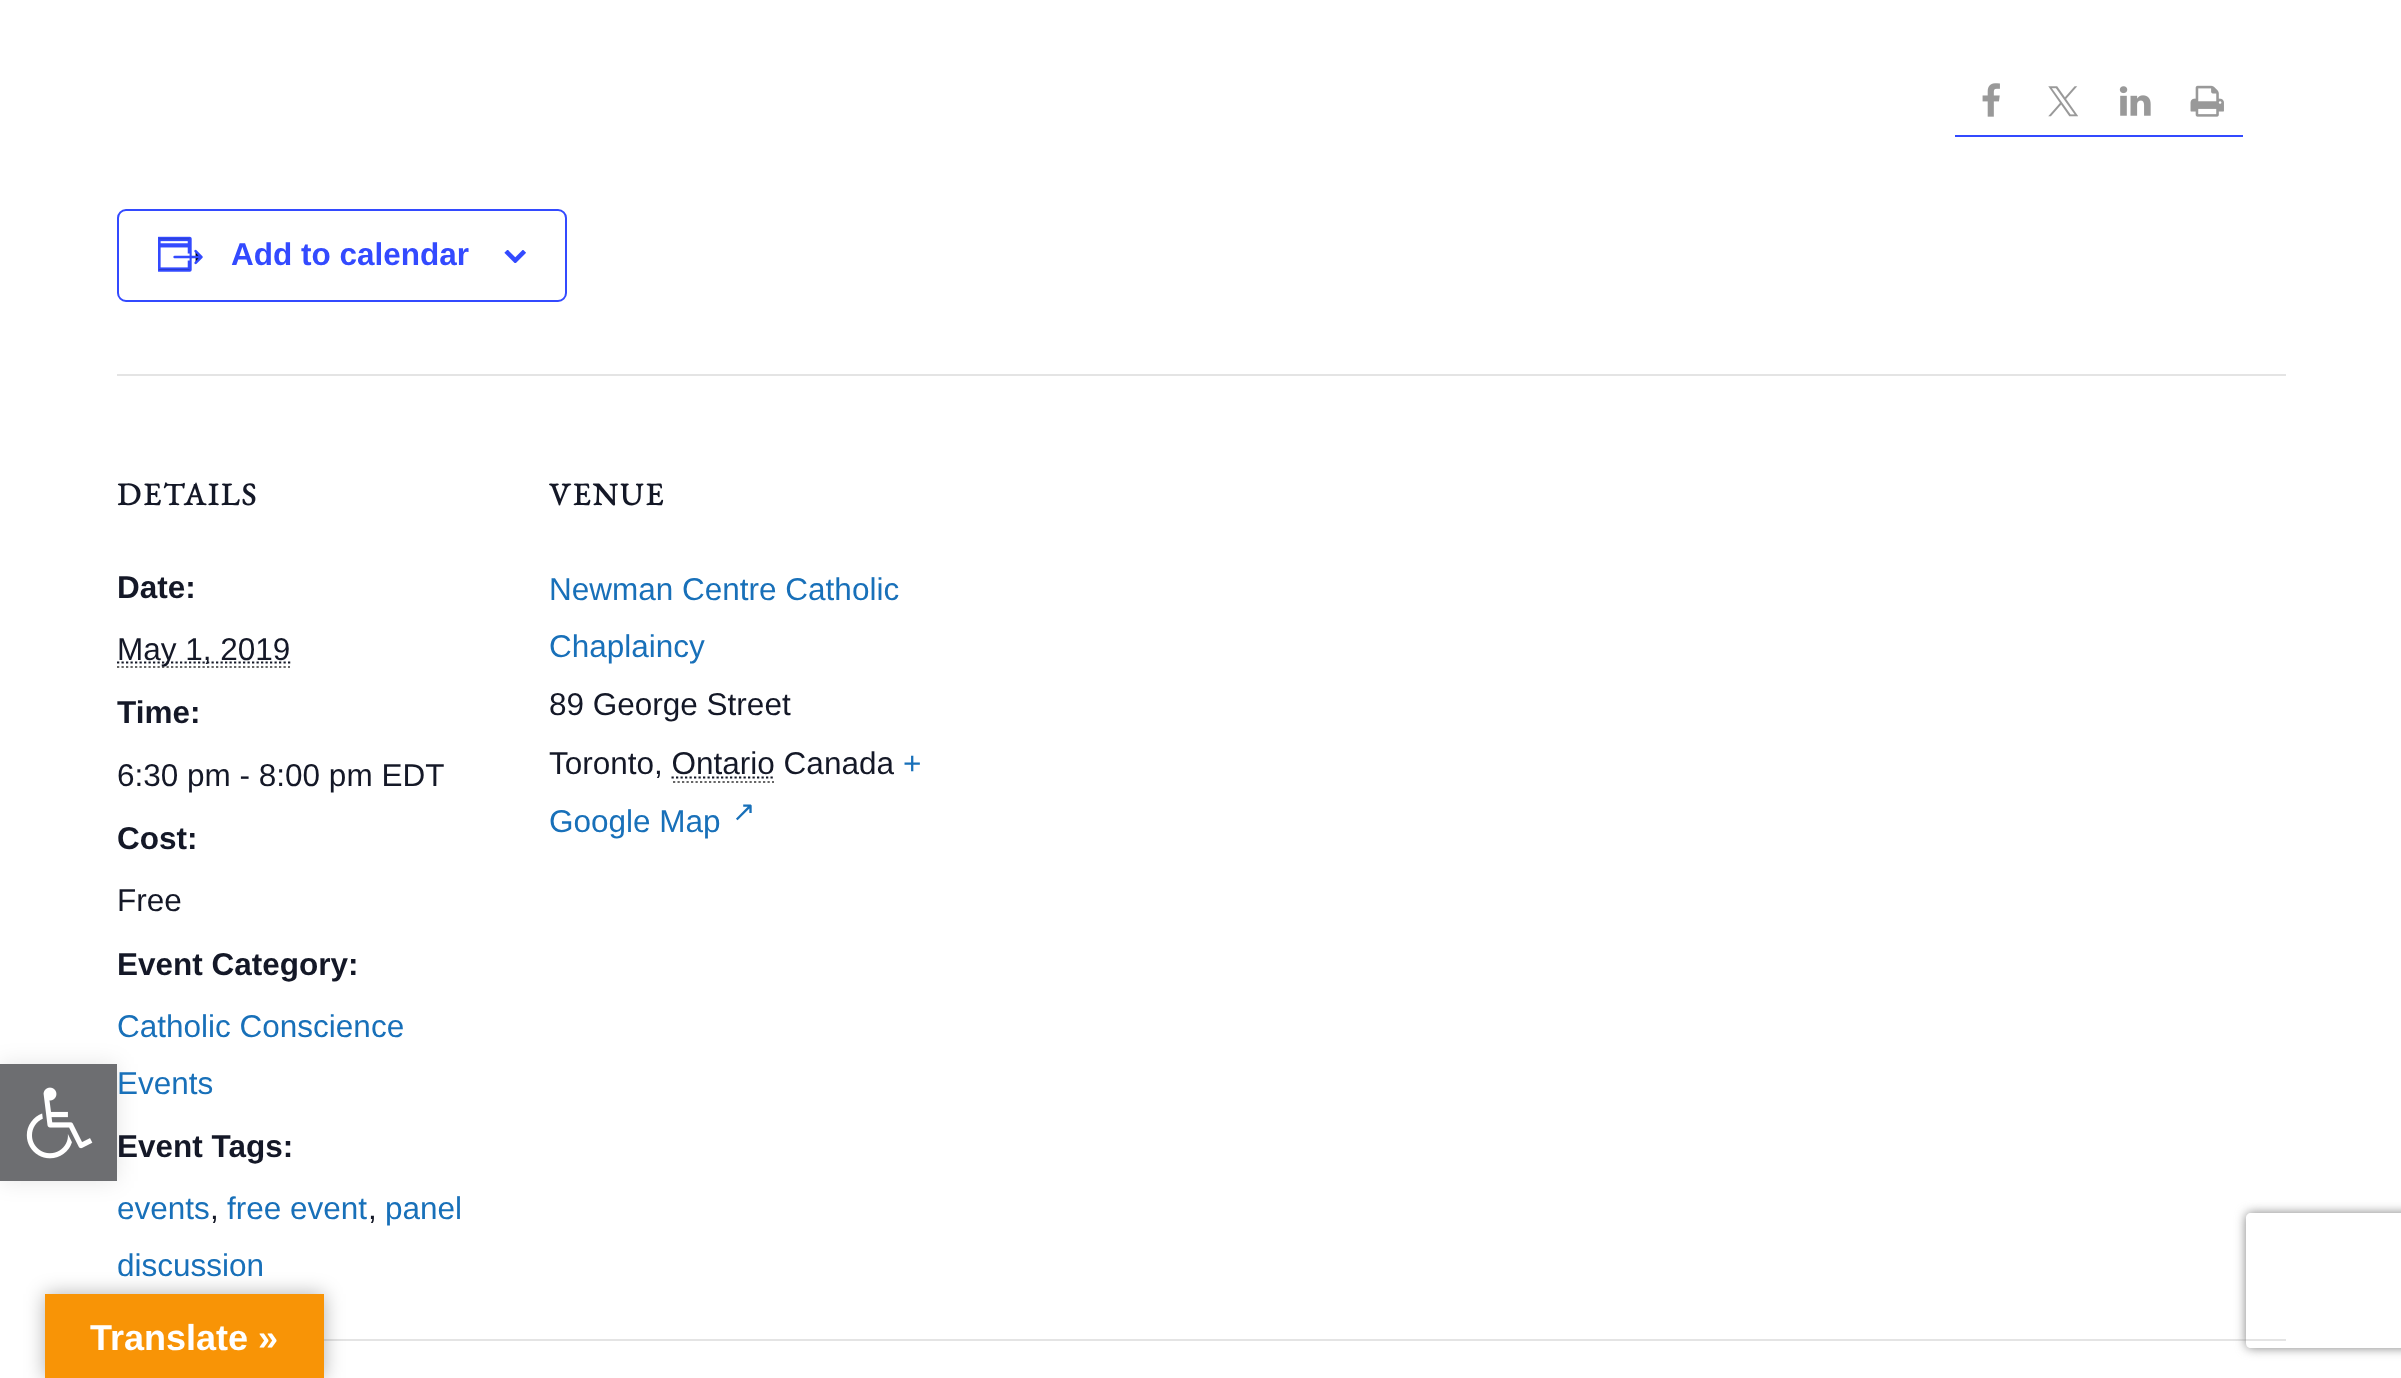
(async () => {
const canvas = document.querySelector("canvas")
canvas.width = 2401
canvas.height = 1378
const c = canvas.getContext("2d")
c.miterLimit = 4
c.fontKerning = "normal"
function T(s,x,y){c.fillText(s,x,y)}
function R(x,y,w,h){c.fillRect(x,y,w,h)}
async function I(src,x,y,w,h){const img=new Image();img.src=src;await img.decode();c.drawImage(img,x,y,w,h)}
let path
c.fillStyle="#fff"
R(0,0,2401,1378)
c.fillStyle="#0000001a"
c.filter="blur(11px)"
c.beginPath()
c.rect(0,1064,117,117)
c.fill()
c.filter="none"
c.fillStyle="#6d6e71"
R(0,1064,117,117)
await I("1.png",26,1087,67,72)
c.fillStyle="#334aff"
R(1955,135,288,2)
await I("2.png",1982,83,18,34)
await I("3.png",2048,86,30,31)
await I("4.png",2119,86,32,30)
await I("5.png",2190,85,34,32)
c.beginPath()
c.roundRect(118,210,448,91,8)
c.strokeStyle="#334aff"
c.lineWidth=2
c.stroke()
await I("6.png",158,236,45,36)
c.font="bold 31.5px Liberation Sans"
T("Add to calendar",231,265)
await I("7.png",504,250,22,13)
c.fillStyle="#e4e4e4"
R(117,374,2169,2)
c.letterSpacing="2.25px"
c.font="bold 31.5px EB Garamond"
c.fillStyle="#141827"
T("DETAILS",117,505)
c.letterSpacing="0px"
c.font="bold 31.5px Liberation Sans"
T("Date:",117,598)
path = new Path2D("M117 667h173")
c.strokeStyle="#666"
c.lineWidth=2.2
c.setLineDash([2.25,2.25])
c.stroke(path)
path = new Path2D("M117 662.5h173.5")
c.strokeStyle="#141827"
c.stroke(path)
c.font="31.5px Liberation Sans"
T("May 1, 2019",117,660)
c.font="bold 31.5px Liberation Sans"
T("Time:",117,723)
c.font="31.5px Liberation Sans"
T("6:30 pm - 8:00 pm EDT",117,786)
c.font="bold 31.5px Liberation Sans"
T("Cost:",117,849)
c.font="31.5px Liberation Sans"
T("Free",117,911)
c.font="bold 31.5px Liberation Sans"
T("Event Category:",117,975)
c.font="31.5px Liberation Sans"
c.fillStyle="#1870b9"
T("Catholic Conscience",117,1037)
T("Events",117,1094)
c.font="bold 31.5px Liberation Sans"
c.fillStyle="#141827"
T("Event Tags:",117,1157)
c.font="31.5px Liberation Sans"
c.fillStyle="#1870b9"
T("events",117,1219)
c.fillStyle="#141827"
T(",",210,1219)
c.fillStyle="#1870b9"
T("free event",227,1219)
c.fillStyle="#141827"
T(",",368,1219)
c.fillStyle="#1870b9"
T("panel",385,1219)
T("discussion",117,1276)
c.letterSpacing="2.25px"
c.font="bold 31.5px EB Garamond"
c.fillStyle="#141827"
T("VENUE",549,505)
c.letterSpacing="0px"
c.font="31.5px Liberation Sans"
c.fillStyle="#1870b9"
T("Newman Centre Catholic",549,600)
T("Chaplaincy",549,657)
c.fillStyle="#141827"
T("89 George Street",549,715)
T("Toronto, Ontario Canada",549,774)
path = new Path2D("M673 782h101")
c.strokeStyle="#666"
c.stroke(path)
path = new Path2D("M671.5 777.5h103.5")
c.strokeStyle="#141827"
c.stroke(path)
c.fillStyle="#1870b9"
T("+",903,774)
T("Google Map",549,832)
c.font="28px DejaVu Sans"
T("↗",732,821)
c.fillStyle="#e4e4e4"
R(324,1339,1962,2)
c.save()
path = new Path2D("M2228 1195h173v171h-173zm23 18h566c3 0 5 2 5 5v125c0 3-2 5-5 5h-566c-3 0-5-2-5-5v-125c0-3 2-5 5-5z")
c.clip(path,"evenodd")
c.fillStyle="#808080"
c.filter="blur(5.5px)"
c.beginPath()
c.roundRect(2246,1213,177,135,5)
c.fill()
c.filter="none"
c.restore()
c.fillStyle="#0000004d"
c.filter="blur(10px)"
c.beginPath()
c.rect(45,1294,279,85)
c.fill()
c.filter="none"
c.fillStyle="#f89406"
R(45,1294,279,84)
c.font="bold 36px Liberation Sans"
c.fillStyle="#fff"
T("Translate »",90,1350)
})()
